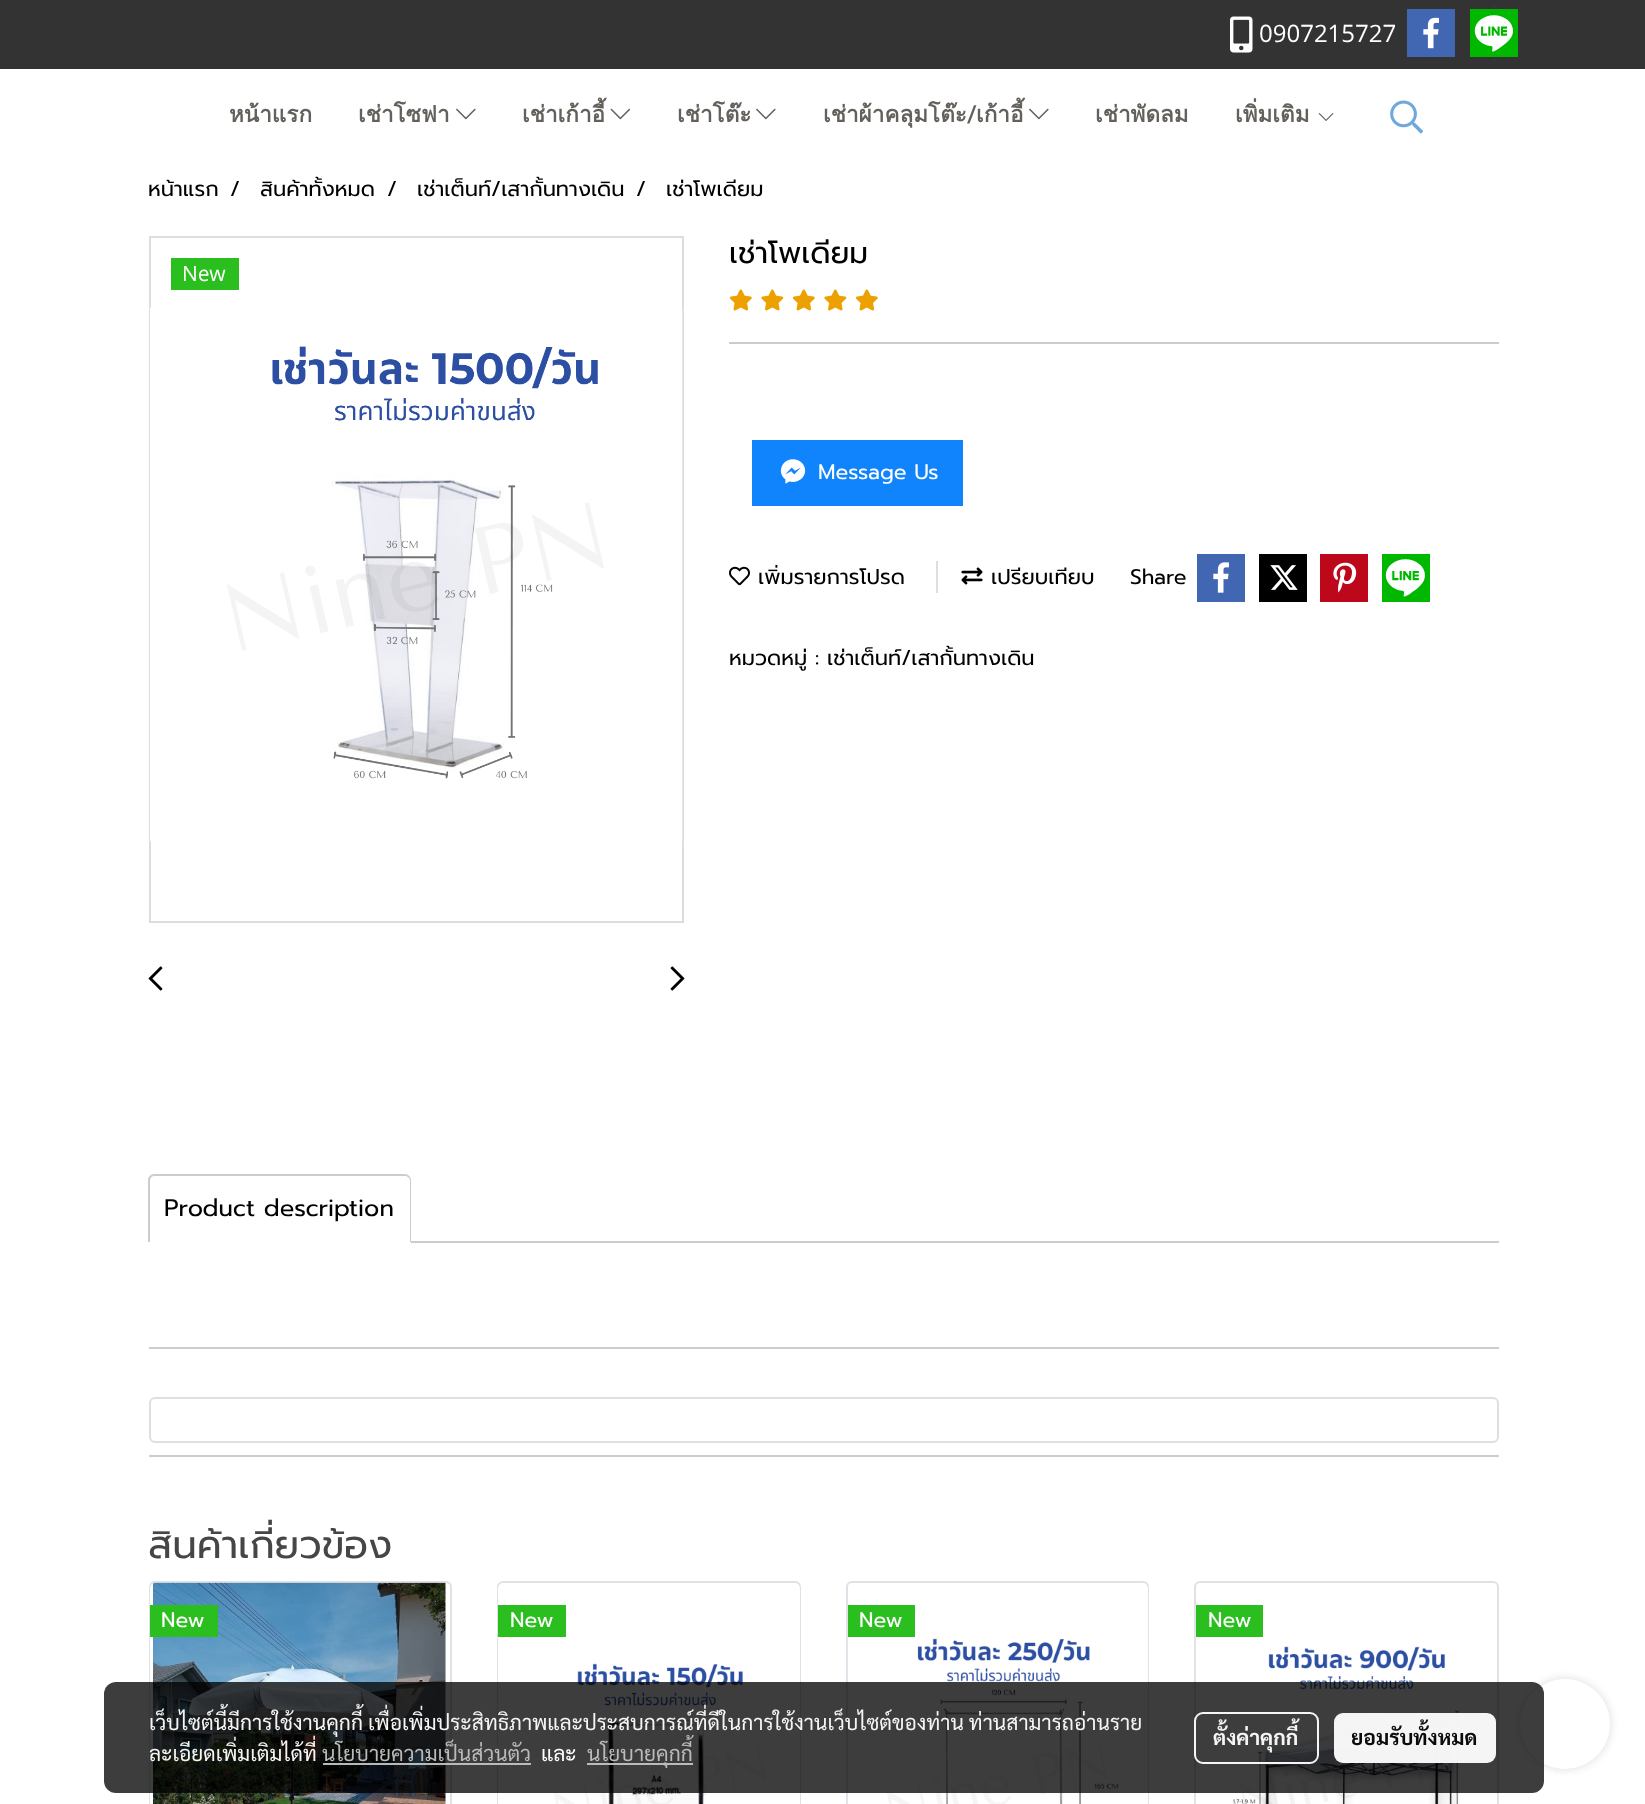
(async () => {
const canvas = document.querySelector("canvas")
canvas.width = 1645
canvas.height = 1804
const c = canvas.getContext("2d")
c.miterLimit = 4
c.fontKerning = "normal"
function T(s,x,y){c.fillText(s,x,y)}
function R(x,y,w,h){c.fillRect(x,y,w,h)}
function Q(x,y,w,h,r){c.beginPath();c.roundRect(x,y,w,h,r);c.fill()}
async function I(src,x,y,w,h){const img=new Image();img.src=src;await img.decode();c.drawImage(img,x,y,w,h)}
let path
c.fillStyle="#fff"
R(0,0,1645,1804)
c.fillStyle="#333"
R(0,0,1645,69)
await I("1.png",1230,16,23,37)
c.font="24px Open Sans"
c.fillStyle="#fff"
T("0907215727",1259,42)
c.fillStyle="#4267b2"
R(1407,9,48,48)
await I("2.png",1423,17,16,32)
c.fillStyle="#00b800"
R(1470,9,48,48)
await I("3.png",1474,6,39,54)
c.font="bold 22.5px Loma"
c.fillStyle="#64615c"
T("หน้าแรก",229,122)
T("เช่าโซฟา",358,122)
await I("4.png",456,108,20,12)
T("เช่าเก้าอี้",522,122)
await I("5.png",610,108,21,12)
T("เช่าโต๊ะ",677,122)
await I("4.png",756,108,20,12)
T("เช่าผ้าคลุมโต๊ะ",823,122)
c.font="bold 22.5px Roboto"
T("/",967,122)
c.font="bold 22.5px Loma"
T("เก้าอี้",976,122)
await I("4.png",1029,108,20,12)
T("เช่าพัดลม",1095,122)
T("เพิ่มเติม",1235,122)
await I("6.png",1318,113,16,8)
await I("7.png",1390,100,34,34)
c.font="21px Prompt"
c.fillStyle="#000"
T("หน้าแรก",148,196)
T("/",230,196)
T("สินค้าทั้งหมด",260,196)
T("/",387,196)
T("เช่าเต็นท์/เสากั้นทางเดิน",417,196)
T("/",636,196)
T("เช่าโพเดียม",666,196)
c.strokeStyle="#ddd"
c.lineWidth=2
c.strokeRect(150,237,533,685)
await I("8.png",150,307,533,535)
c.fillStyle="#2bbe1f"
R(171,258,68,32)
c.font="21px Open Sans"
c.fillStyle="#fff"
T("New",182,281)
await I("9.png",148,966,15,25)
await I("10.png",670,966,15,25)
c.font="30px Prompt"
c.fillStyle="#000"
T("เช่าโพเดียม",729,263)
await I("11.png",729,289,23,22)
await I("12.png",761,289,23,22)
await I("11.png",792,289,23,22)
await I("12.png",824,289,23,22)
await I("11.png",855,289,23,22)
c.fillStyle="#ccc"
R(729,342,770,2)
c.fillStyle="#0f84fd"
R(752,440,211,66)
await I("13.png",780,459,26,25)
c.font="21px Prompt"
c.fillStyle="#fff"
T("Message Us",818,479)
await I("14.png",729,566,21,20)
c.fillStyle="#000"
T("เพิ่มรายการโปรด",758,584)
c.fillStyle="#dedede"
R(936,561,2,32)
await I("15.png",961,567,22,18)
c.fillStyle="#000"
T("เปรียบเทียบ",991,584)
T("Share",1130,584)
c.fillStyle="#4267b2"
R(1197,554,48,48)
await I("16.png",1213,562,16,31)
c.fillStyle="#000"
R(1259,554,48,48)
await I("17.png",1270,565,28,25)
c.fillStyle="#bd081c"
R(1320,554,48,48)
await I("18.png",1333,562,24,31)
c.fillStyle="#00b800"
R(1382,554,48,48)
await I("19.png",1385,559,40,38)
c.fillStyle="#000"
T("หมวดหมู่ : เช่าเต็นท์/เสากั้นทางเดิน",729,665)
c.fillStyle="#ccc"
path = new Path2D("M154 1174h251c3 0 6 3 6 6v62h-263v-62c0-3 3-6 6-6zm0 2h251c2 0 5 2 5 4v62h-260v-62c0-2 2-4 4-4z")
c.fill(path,"evenodd")
c.font="24px Prompt"
c.fillStyle="#000"
T("Product description",164,1216)
c.fillStyle="#ccc"
R(411,1241,1088,2)
R(149,1347,1350,2)
c.beginPath()
c.roundRect(150,1398,1348,44,5)
c.strokeStyle="#dfdfdf"
c.stroke()
R(149,1455,1350,2)
c.font="39px Prompt"
c.fillStyle="#464646"
T("สินค้าเกี่ยวข้อง",148,1558)
c.beginPath()
c.roundRect(150,1582,301,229,5)
c.strokeStyle="#dee2e6"
c.stroke()
c.fillStyle="#fff"
path = new Path2D("M156 1583h288c3.5 0 6 2.5 6 6v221h-300v-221c0-3.5 2.5-6 6-6z")
c.fill(path)
await I("20.png",153,1582,293,222)
c.fillStyle="#2bbe1f"
R(150,1605,68,32)
c.font="21px Prompt"
c.fillStyle="#fff"
T("New",161,1627)
c.beginPath()
c.roundRect(498,1582,302,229,5)
c.stroke()
path = new Path2D("M504 1583h290c3.5 0 6 2.5 6 6v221h-302v-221c0-3.5 2.5-6 6-6z")
c.fill(path)
await I("21.png",553,1663,213,141)
c.fillStyle="#2bbe1f"
R(498,1605,68,32)
c.fillStyle="#fff"
T("New",510,1627)
c.beginPath()
c.roundRect(847,1582,301,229,5)
c.stroke()
path = new Path2D("M854 1583h288c3.5 0 6 2.5 6 6v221h-300v-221c0-3.5 2.5-6 6-6z")
c.fill(path)
await I("22.png",847,1626,272,178)
c.fillStyle="#2bbe1f"
R(848,1605,67,32)
c.fillStyle="#fff"
T("New",859,1627)
c.beginPath()
c.roundRect(1195,1582,303,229,5)
c.stroke()
await I("23.png",1195,1626,265,178)
c.fillStyle="#2bbe1f"
R(1196,1605,67,32)
c.fillStyle="#fff"
T("New",1208,1627)
c.fillStyle="#00000024"
c.filter="blur(5px)"
c.beginPath()
c.roundRect(1520,1679,90,90,45)
c.fill()
c.filter="none"
c.fillStyle="#fff"
c.beginPath()
c.arc(1565,1724,45,0,7)
c.fill()
c.fillStyle="#000000c2"
Q(104,1682,1440,111,12)
c.font="21px Sarabun"
c.fillStyle="#f5f5f5"
T("เว็บไซต์นี้มีการใช้งานคุกกี้ เพื่อเพิ่มประสิทธิภาพและประสบการณ์ที่ดีในการใช้งานเว็บไซต์ของท่าน ท่านสามารถอ่านราย",149,1730)
T("ละเอียดเพิ่มเติมได้ที่",149,1761)
c.fillStyle="#bababa"
T("นโยบายความเป็นส่วนตัว",322,1761)
c.fillStyle="#c2c2c2f2"
R(323,1763,208,2)
c.fillStyle="#fff"
T("และ",541,1761)
c.fillStyle="#c2c2c2f2"
R(587,1763,106,2)
c.fillStyle="#bababa"
T("นโยบายคุกกี้",587,1761)
c.beginPath()
c.roundRect(1195,1713,123,50,8)
c.strokeStyle="#fffffff2"
c.stroke()
c.font="bold 21px Sarabun"
c.fillStyle="#f5f5f5"
T("ตั้งค่าคุกกี้",1213,1745)
c.fillStyle="#fffffff2"
Q(1334,1713,162,50,9)
c.fillStyle="#0c0c0c"
T("ยอมรับทั้งหมด",1351,1745)
})()
